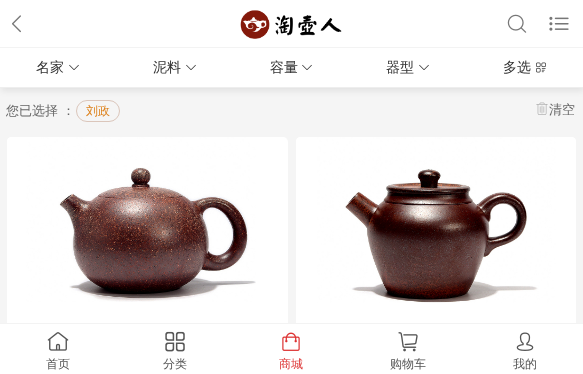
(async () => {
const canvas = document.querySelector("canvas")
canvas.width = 583
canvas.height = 374
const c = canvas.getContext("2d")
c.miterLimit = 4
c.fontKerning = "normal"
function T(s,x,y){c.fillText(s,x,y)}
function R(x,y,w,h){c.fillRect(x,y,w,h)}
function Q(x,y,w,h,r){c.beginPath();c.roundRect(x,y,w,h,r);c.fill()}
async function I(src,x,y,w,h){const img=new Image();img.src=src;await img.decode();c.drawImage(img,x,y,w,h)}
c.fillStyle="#f5f5f5"
R(0,0,583,374)
c.beginPath()
c.roundRect(76.5,100.5,43,21,10.5)
c.strokeStyle="#dbc6bb"
c.stroke()
c.fillStyle="#00000014"
c.filter="blur(3px)"
c.beginPath()
c.rect(1,5,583,86)
c.fill()
c.filter="none"
c.fillStyle="#fff"
R(0,0,583,47)
c.fillStyle="#f3f3f3"
R(0,47,583,1)
await I("1.png",12,15,9,18)
await I("2.png",240,10,102,29)
await I("3.png",507,14,20,19)
await I("4.png",549,16,20,15)
c.fillStyle="#fff"
R(0,48,583,39)
c.fillStyle="#eee"
R(0,87,583,1)
c.font="500 14px WenQuanYi Zen Hei"
c.fillStyle="#333"
T("名家",36,72)
await I("5.png",69,64,10,6)
T("泥料",153,72)
await I("5.png",186,64,10,6)
T("容量",270,72)
await I("5.png",302,64,10,6)
T("器型",386,72)
await I("5.png",419,64,10,6)
T("多选",503,72)
await I("6.png",536,62,10,11)
c.fillStyle="#fff"
Q(7,137,281,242,5)
Q(296,137,280,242,5)
R(0,324,583,50)
c.fillStyle="#f3f3f3"
R(0,323,583,1)
await I("7.png",47,332,22,19)
c.font="500 12px WenQuanYi Zen Hei"
c.fillStyle="#555"
T("首页",46,368)
await I("8.png",165,331,20,21)
T("分类",163,368)
await I("9.png",282,332,18,19)
c.fillStyle="#d33"
T("商城",279,368)
await I("10.png",398,332,20,20)
c.fillStyle="#555"
T("购物车",390,368)
await I("11.png",516,332,18,19)
T("我的",513,368)
c.font="500 13px WenQuanYi Zen Hei"
c.fillStyle="#666"
T("您已选择 ：",6,115)
c.font="500 12px WenQuanYi Zen Hei"
c.fillStyle="#dd801a"
T("刘政",86,115)
await I("12.png",536,102,12,13)
c.font="500 13px WenQuanYi Zen Hei"
c.fillStyle="#666"
T("清空",549,114)
await I("13.png",7,137,249,165)
await I("14.png",296,137,280,166)
})()
